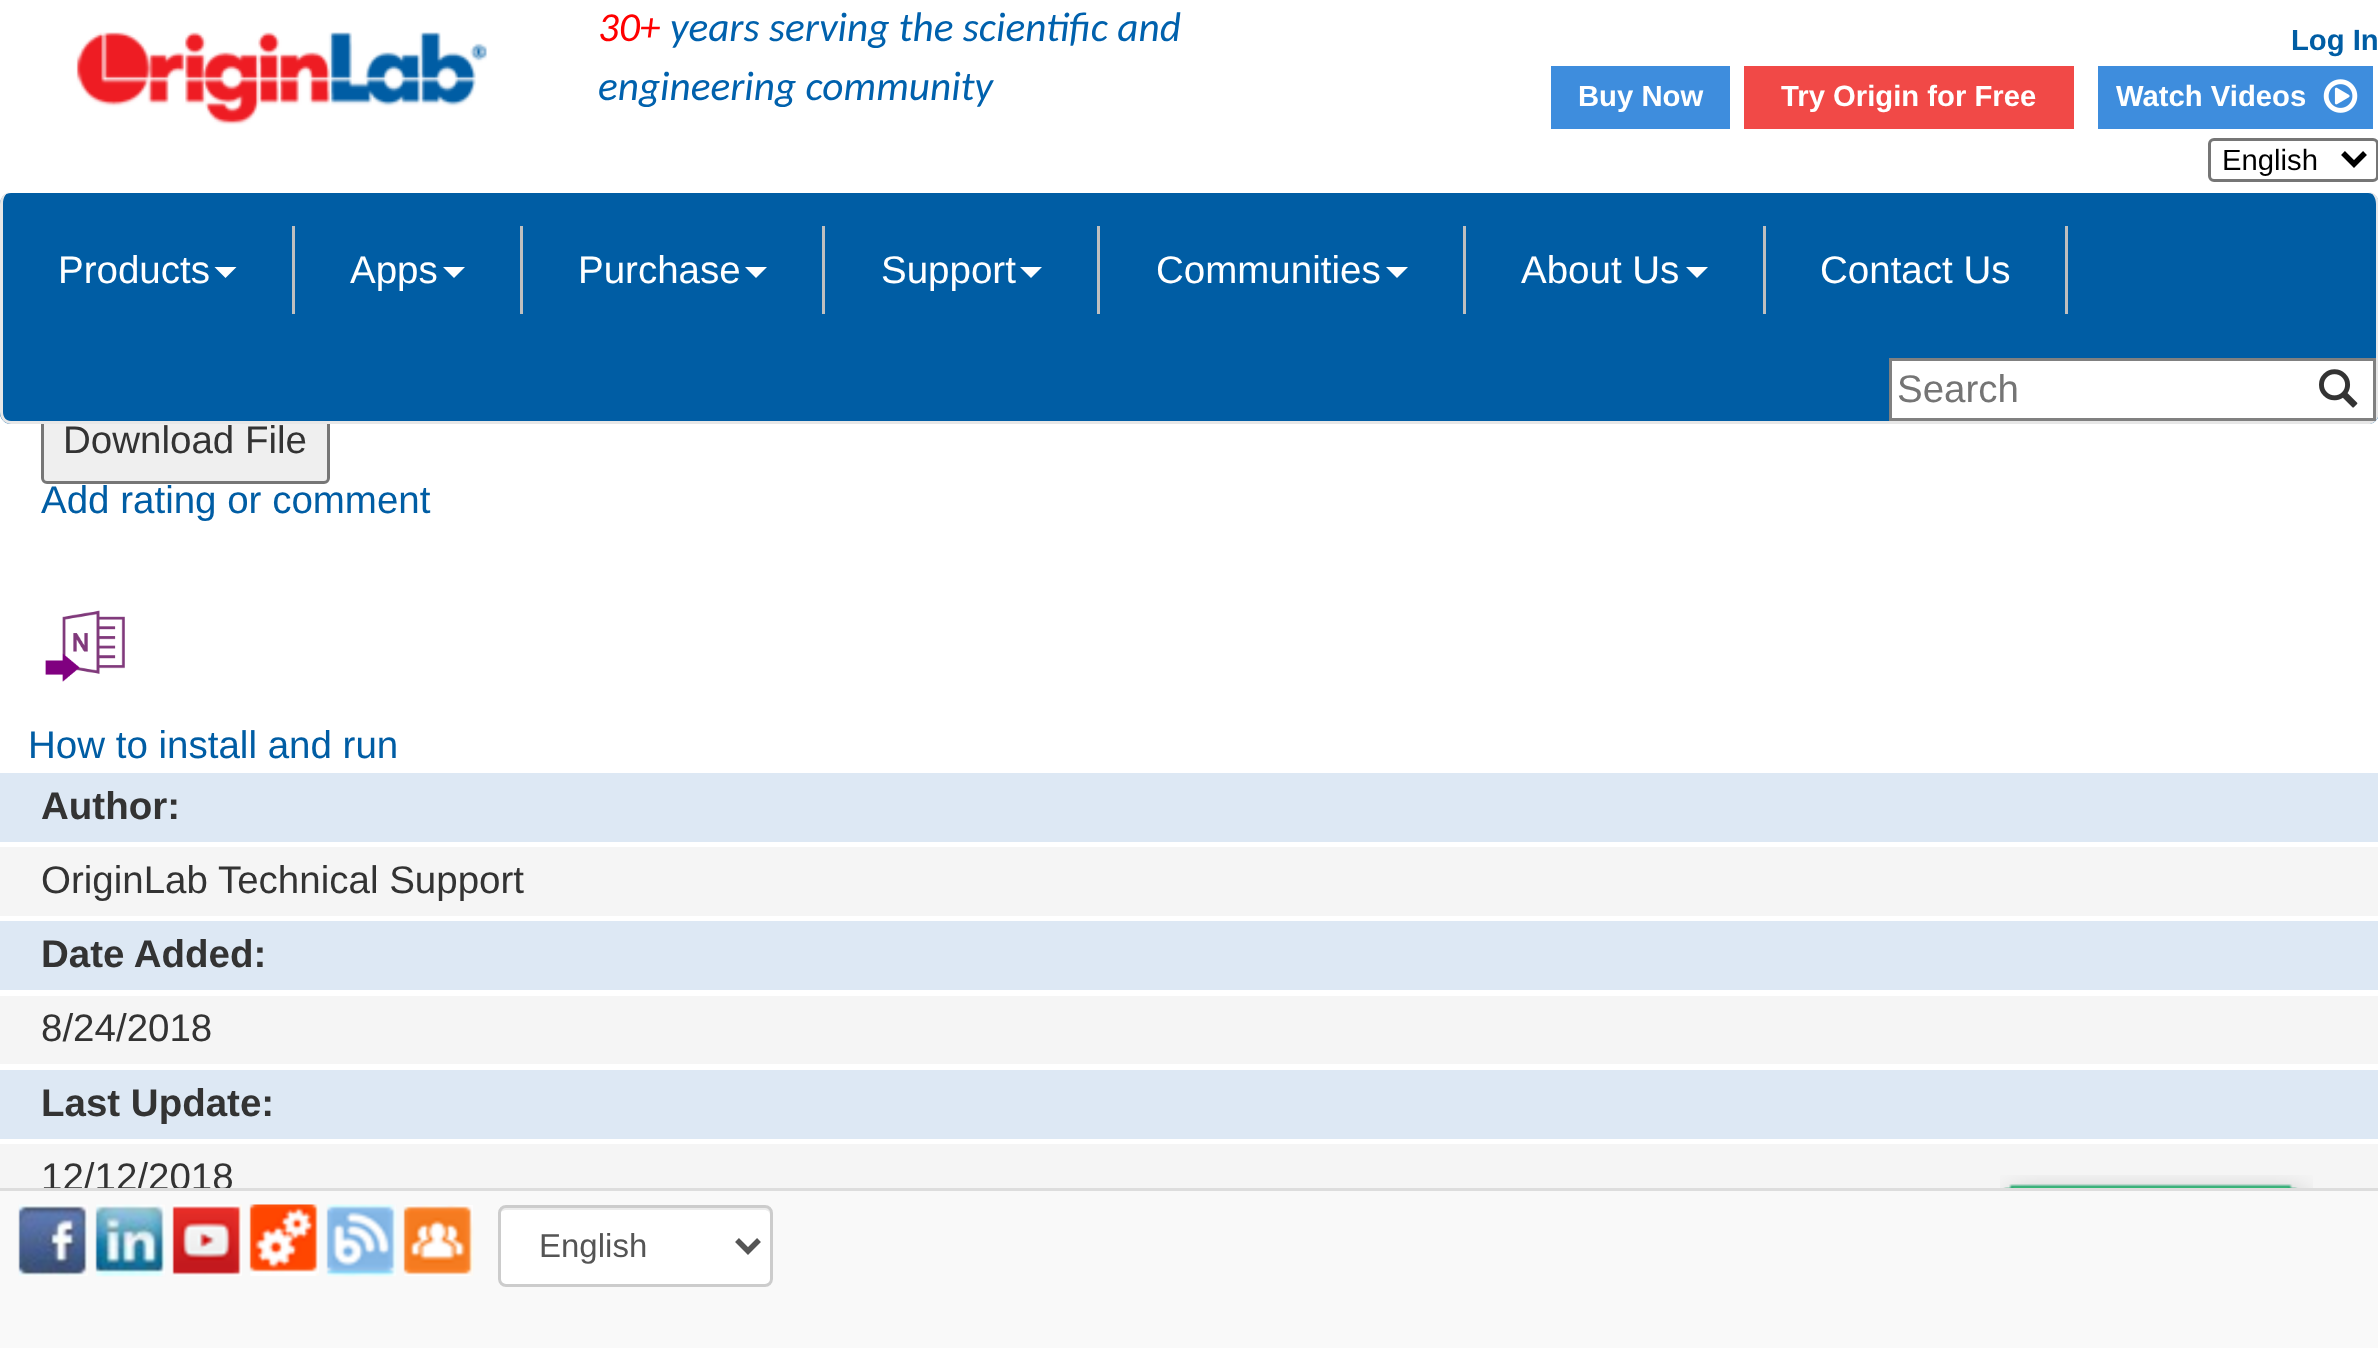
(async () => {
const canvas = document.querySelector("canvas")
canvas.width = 2378
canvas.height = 1348
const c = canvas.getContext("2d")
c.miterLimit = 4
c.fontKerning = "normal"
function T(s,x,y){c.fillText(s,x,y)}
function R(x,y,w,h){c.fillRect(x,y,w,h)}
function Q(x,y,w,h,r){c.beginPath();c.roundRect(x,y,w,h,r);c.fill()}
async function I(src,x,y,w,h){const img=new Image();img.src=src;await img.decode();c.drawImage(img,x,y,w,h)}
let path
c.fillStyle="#fff"
R(0,0,2378,1348)
c.fillStyle="#efefef"
c.beginPath()
c.roundRect(42.5,400.5,286,82,4.5)
c.fill()
c.strokeStyle="#767676"
c.lineWidth=3
c.stroke()
c.fillStyle="#fff"
R(41,399,289,25)
await I("1.png",76,32,411,93)
c.font="italic 41.25px Carlito"
c.fillStyle="#f00"
T("30+",598,41)
c.fillStyle="#0061ad"
T("years serving the scientific and",670,41)
T("engineering community",598,100)
c.font="bold 29.25px Liberation Sans"
c.fillStyle="#005da4"
T("Log In",2291,50)
c.fillStyle="#3e8ddd"
R(1551,66,179,63)
c.fillStyle="#fff"
T("Buy Now",1578,106)
c.fillStyle="#f14947"
R(1744,66,330,63)
c.fillStyle="#fff"
T("Try Origin for Free",1781,106)
c.fillStyle="#3e8ddd"
R(2098,66,275,63)
c.fillStyle="#fff"
T("Watch Videos",2116,106)
await I("2.png",2323,79,35,34)
c.beginPath()
c.roundRect(2209.5,139.5,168,41,4.5)
c.stroke()
path = new Path2D("M2343 153l11 11l11-11")
c.strokeStyle="#000"
c.lineWidth=5.5
c.stroke(path)
c.font="29.25px Liberation Sans"
c.fillStyle="#000"
T("English",2222,170)
c.fillStyle="#005da4"
Q(0,193,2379,231,11)
c.fillStyle="#e7e7e7"
path = new Path2D("M11 192h2357c6 0 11 5 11 12v208c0 7-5 12-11 12h-2357c-6 0-11-5-11-12v-208c0-7 5-12 11-12zm0 0h2357c4 0 8 5 8 12v208c0 5-4 9-8 9h-2357c-5 0-8-4-8-9v-208c0-7 3-12 8-12z")
c.fill(path,"evenodd")
c.fillStyle="#bfbfbf"
R(292,226,3,88)
c.font="38.5px Liberation Sans"
c.fillStyle="#fff"
T("Products",58,283)
path = new Path2D("M214.5 267h22l-11 11z")
c.fill(path)
c.fillStyle="#bfbfbf"
R(520,226,3,88)
c.fillStyle="#fff"
T("Apps",350,283)
path = new Path2D("M443 267h22l-11 11z")
c.fill(path)
c.fillStyle="#bfbfbf"
R(822,226,3,88)
c.fillStyle="#fff"
T("Purchase",578,283)
path = new Path2D("M745 267h22l-11 11z")
c.fill(path)
c.fillStyle="#bfbfbf"
R(1097,226,3,88)
c.fillStyle="#fff"
T("Support",881,283)
path = new Path2D("M1020 267h22l-11 11z")
c.fill(path)
c.fillStyle="#bfbfbf"
R(1463,226,3,88)
c.fillStyle="#fff"
T("Communities",1156,283)
path = new Path2D("M1386 267h22l-11 11z")
c.fill(path)
c.fillStyle="#bfbfbf"
R(1763,226,3,88)
c.fillStyle="#fff"
T("About Us",1521,283)
path = new Path2D("M1686 267h22l-11 11z")
c.fill(path)
c.fillStyle="#bfbfbf"
R(2065,226,3,88)
c.fillStyle="#fff"
T("Contact Us",1820,283)
R(1892,361,481,57)
c.fillStyle="#808080"
R(1889,358,487,3)
R(1889,418,413,3)
R(1889,358,3,63)
c.fillStyle="#757575"
T("Search",1897,402)
c.fillStyle="#808080"
R(2373,358,3,63)
R(2302,418,74,3)
await I("3.png",2319,369,39,39)
c.fillStyle="#333"
T("Download File",63,453)
c.fillStyle="#005da4"
T("Add rating or comment",41,513)
await I("4.png",45,610,80,72)
T("How to install and run",28,758)
c.fillStyle="#dde8f4"
R(0,773,2378,69)
c.font="bold 38.5px Liberation Sans"
c.fillStyle="#333"
T("Author:",41,819)
c.fillStyle="#f5f5f5"
R(0,847,2378,69)
c.font="38.5px Liberation Sans"
c.fillStyle="#333"
T("OriginLab Technical Support",41,893)
c.fillStyle="#dde8f4"
R(0,921,2378,69)
c.font="bold 38.5px Liberation Sans"
c.fillStyle="#333"
T("Date Added:",41,967)
c.fillStyle="#f5f5f5"
R(0,996,2378,68)
c.font="38.5px Liberation Sans"
c.fillStyle="#333"
T("8/24/2018",41,1041)
c.fillStyle="#dde8f4"
R(0,1070,2378,69)
c.font="bold 38.5px Liberation Sans"
c.fillStyle="#333"
T("Last Update:",41,1116)
c.fillStyle="#f5f5f5"
R(0,1144,2378,44)
c.font="38.5px Liberation Sans"
c.fillStyle="#333"
T("12/12/2018",41,1190)
await I("5.png",2000,1175,313,13)
c.fillStyle="#f9f9f9"
R(0,1191,2378,157)
c.fillStyle="#ddd"
R(0,1188,2378,3)
await I("6.png",18,1204,70,72)
await I("7.png",95,1204,71,73)
await I("8.png",172,1204,70,72)
await I("9.png",249,1204,70,72)
await I("10.png",326,1204,71,73)
await I("11.png",403,1205,71,71)
c.fillStyle="#fff"
Q(498,1205,275,82,8)
c.fillStyle="#ececec"
path = new Path2D("M506 1210h258c4 0 6 2 6 6v-3c0-3-3-6-6-6h-257c-3 0-6 2-6 5c1-1 3-2 5-2z")
c.fill(path)
c.beginPath()
c.roundRect(499.5,1206.5,272,79,6.5)
c.strokeStyle="#ccc"
c.lineWidth=3
c.stroke()
path = new Path2D("M737 1240l11 11l11-11")
c.strokeStyle="#555"
c.lineWidth=5.5
c.stroke(path)
c.font="33px Liberation Sans"
c.fillStyle="#555"
T("English",539,1257)
})()
